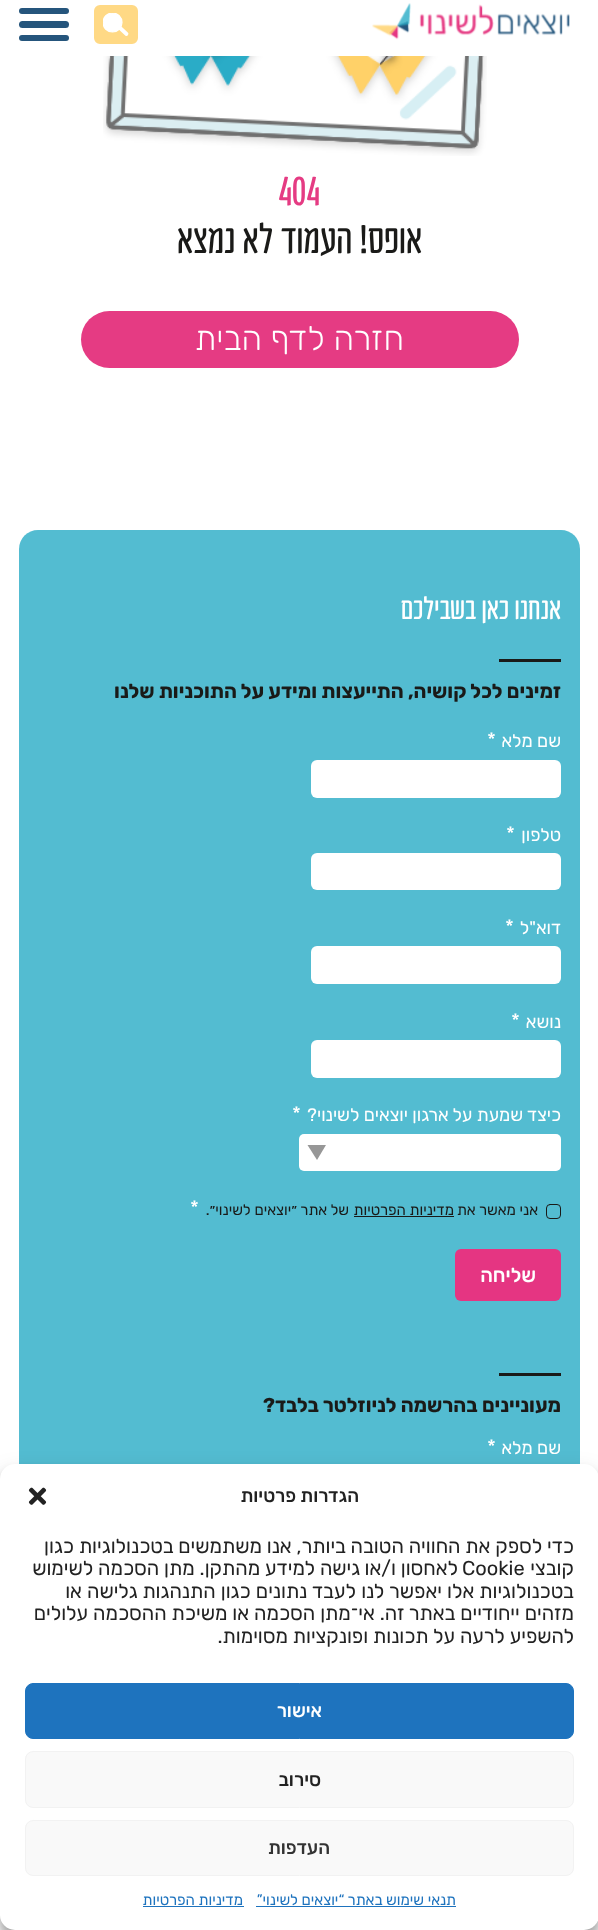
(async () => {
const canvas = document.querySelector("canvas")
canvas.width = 598
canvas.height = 1930
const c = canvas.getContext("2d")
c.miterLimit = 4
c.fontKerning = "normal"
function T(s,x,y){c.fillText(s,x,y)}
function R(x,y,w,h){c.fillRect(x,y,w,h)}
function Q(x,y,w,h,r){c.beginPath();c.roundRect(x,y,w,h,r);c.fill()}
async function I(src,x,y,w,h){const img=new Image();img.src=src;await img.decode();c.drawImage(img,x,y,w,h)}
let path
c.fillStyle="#fff"
R(0,0,598,1930)
await I("1.png",372,3,198,37)
c.fillStyle="#ffd985"
c.beginPath()
c.roundRect(95.5,6.5,41,36,4.5)
c.fill()
c.strokeStyle="#ffd985"
c.lineWidth=3
c.stroke()
c.fillStyle="#fff"
c.beginPath()
c.arc(112.5,22.5,9.5,0,7)
c.fill()
c.save()
c.beginPath()
c.rect(103,13,26,25)
c.clip()
c.beginPath()
c.arc(112.5,22.5,9.5,0,7)
c.strokeStyle="#fff"
c.lineWidth=1.2
c.stroke()
c.restore()
path = new Path2D("M118.5 26.5l8 7.5")
c.strokeStyle="#fff"
c.lineWidth=3.8
c.lineCap="round"
c.stroke(path)
c.fillStyle="#25557c"
Q(19,8,50,6,3)
Q(19,21,50,7,3.5)
Q(19,35,50,6,3)
await I("2.png",103,56,384,100)
c.font="40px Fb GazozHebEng"
c.fillStyle="#e53b83"
T("404",278,205)
c.direction="rtl"
c.fillStyle="#1a1a18"
T("אופס! העמוד לא נמצא",422,253)
c.fillStyle="#e53b83"
Q(81,311,438,57,28.5)
c.font="300 33.75px Rubik"
c.fillStyle="#fff"
T("חזרה לדף הבית",404,350)
c.fillStyle="#53bcd1"
Q(19,530,561,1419,19)
c.font="30px Fb GazozHebEng"
c.fillStyle="#fff"
T("אנחנו כאן בשבילכם",561,619)
c.fillStyle="#1a1a18"
R(499,659,62,3)
c.font="bold 20px Rubik"
T("זמינים לכל קושיה, התייעצות ומידע על התוכניות שלנו",561,698)
c.font="18px Rubik"
c.fillStyle="#fff"
T("שם מלא",561,747)
c.direction="ltr"
c.font="20px Rubik"
T("*",487,747)
Q(311,760,250,38,6)
c.direction="rtl"
c.font="18px Rubik"
T("טלפון",561,841)
c.direction="ltr"
c.font="20px Rubik"
T("*",506,841)
Q(311,853,250,37,6)
c.direction="rtl"
c.font="18px Rubik"
T("דוא\"ל",561,934)
c.direction="ltr"
c.font="20px Rubik"
T("*",505,934)
Q(311,946,250,38,6)
c.direction="rtl"
c.font="18px Rubik"
T("נושא",561,1028)
c.direction="ltr"
c.font="20px Rubik"
T("*",511,1028)
Q(311,1040,250,38,6)
c.direction="rtl"
c.font="18px Rubik"
T("כיצד שמעת על ארגון יוצאים לשינוי?",561,1121)
c.direction="ltr"
c.font="20px Rubik"
T("*",292,1121)
Q(299,1134,262,37,5)
c.fillStyle="#979797"
path = new Path2D("M317 1160l-9.5-15h18.5z")
c.fill(path)
c.beginPath()
c.roundRect(546.5,1204.5,14,14,3.5)
c.strokeStyle="#1a1a18"
c.lineWidth=1
c.stroke()
c.direction="rtl"
c.font="15px Rubik"
c.fillStyle="#1a1a18"
T("אני מאשר את",538,1215)
T("מדיניות הפרטיות",454,1215)
R(354,1216,100,1)
T("של אתר ״יוצאים לשינוי״.",349,1215)
c.direction="ltr"
c.font="20px Rubik"
c.fillStyle="#fff"
T("*",190,1215)
c.fillStyle="#e53582"
Q(455,1249,106,52,6)
c.direction="rtl"
c.font="500 20px Rubik"
c.fillStyle="#fff"
T("שליחה",536,1282)
c.fillStyle="#1a1a18"
R(499,1373,62,3)
c.font="bold 20px Rubik"
T("מעוניינים בהרשמה לניוזלטר בלבד?",561,1412)
c.font="18px Rubik"
c.fillStyle="#fff"
T("שם מלא",561,1454)
c.direction="ltr"
c.font="20px Rubik"
T("*",487,1454)
c.fillStyle="#0000003b"
c.filter="blur(4px)"
c.beginPath()
c.roundRect(0,1471,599,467,15)
c.fill()
c.filter="none"
c.fillStyle="#00000030"
c.filter="blur(12.5px)"
c.beginPath()
c.roundRect(0,1476,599,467,15)
c.fill()
c.filter="none"
c.fillStyle="#fff"
Q(0,1464,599,466,15)
c.direction="rtl"
c.font="500 18.75px Rubik"
c.fillStyle="#222"
T("הגדרות פרטיות",359,1502)
await I("3.png",28,1487,19,18)
c.font="20px Rubik"
T("כדי לספק את החוויה הטובה ביותר, אנו משתמשים בטכנולוגיות כגון",574,1553)
T("קובצי",574,1575)
c.direction="ltr"
T("Cookie",462,1575)
c.direction="rtl"
T("לאחסון ו/או גישה למידע מהתקן. מתן הסכמה לשימוש",458,1575)
c.wordSpacing="0.25px"
T("בטכנולוגיות אלו יאפשר לנו לעבד נתונים כגון התנהגות גלישה או",574,1598)
c.wordSpacing="0.1px"
T("מזהים ייחודיים באתר זה. אי־מתן הסכמה או משיכת ההסכמה עלולים",574,1620)
c.wordSpacing="0px"
T("להשפיע לרעה על תכונות ופונקציות מסוימות.",574,1643)
c.fillStyle="#1e73be"
c.beginPath()
c.roundRect(25.5,1683.5,548,55,7.5)
c.fill()
c.strokeStyle="#1e73be"
c.stroke()
c.font="500 18.75px Rubik"
c.fillStyle="#fff"
T("אישור",322,1717)
c.fillStyle="#f9f9f9"
c.beginPath()
c.roundRect(25.5,1751.5,548,56,7.5)
c.fill()
c.strokeStyle="#f2f2f2"
c.stroke()
c.fillStyle="#222"
T("סירוב",321,1786)
c.fillStyle="#f9f9f9"
c.beginPath()
c.roundRect(25.5,1820.5,548,55,7.5)
c.fill()
c.stroke()
c.fillStyle="#333"
T("העדפות",330,1854)
c.font="15px Rubik"
c.fillStyle="#1e73be"
T("תנאי שימוש באתר “יוצאים לשינוי”",456,1905)
R(256,1906,200,1)
T("מדיניות הפרטיות",243,1905)
R(143,1906,101,1)
})()
